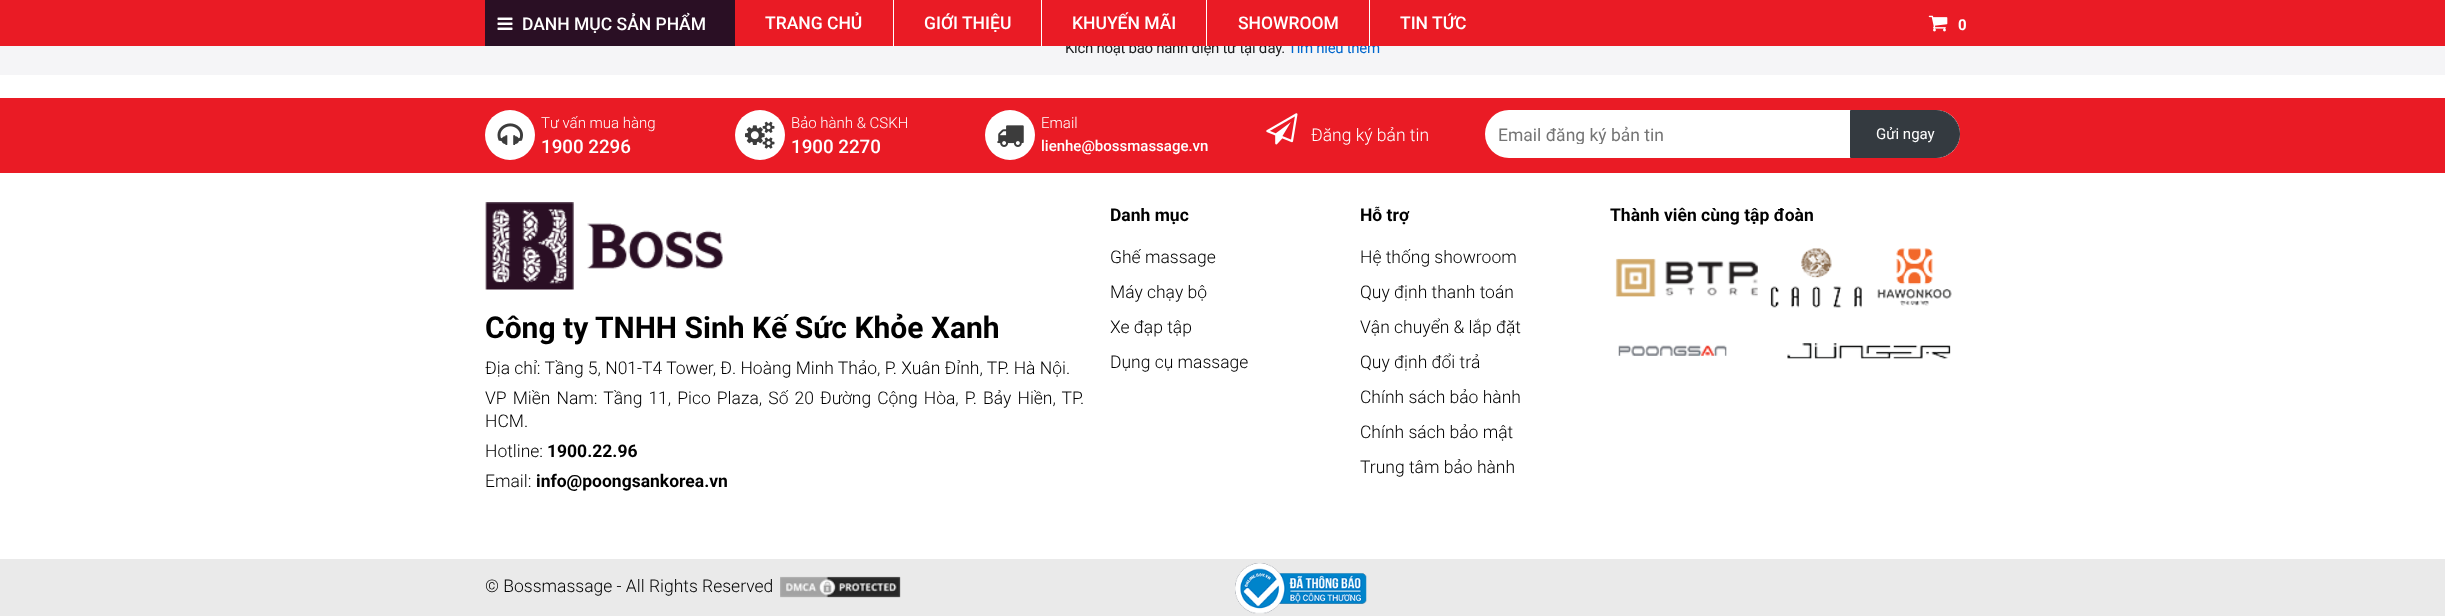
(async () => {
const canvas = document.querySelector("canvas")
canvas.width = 2445
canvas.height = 616
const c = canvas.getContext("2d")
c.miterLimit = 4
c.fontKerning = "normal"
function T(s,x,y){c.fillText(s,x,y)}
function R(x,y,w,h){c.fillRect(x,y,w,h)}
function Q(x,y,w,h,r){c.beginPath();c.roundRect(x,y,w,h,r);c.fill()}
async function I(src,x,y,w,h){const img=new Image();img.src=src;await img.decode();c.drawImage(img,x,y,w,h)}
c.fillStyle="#fff"
R(0,0,2445,616)
c.fillStyle="#f5f5f7"
R(0,46,2445,29)
c.letterSpacing="-0.3px"
c.font="15px Roboto"
c.fillStyle="#1d1d1f"
T("Kích hoạt bảo hành điện tử tại đây.",1065,53)
c.fillStyle="#06c"
T("Tìm hiểu thêm",1288,53)
c.fillStyle="#ea1b25"
R(0,0,2445,46)
c.fillStyle="#2a0f24"
R(485,0,250,46)
await I("1.png",497,17,16,13)
c.letterSpacing="0px"
c.font="500 17.5px Roboto"
c.fillStyle="#fff"
T("DANH MỤC SẢN PHẨM",522,30)
R(893,0,1,46)
T("TRANG CHỦ",765,29)
R(1041,0,1,46)
T("GIỚI THIỆU",924,29)
R(1206,0,1,46)
T("KHUYẾN MÃI",1072,29)
R(1369,0,1,46)
T("SHOWROOM",1238,29)
T("TIN TỨC",1400,29)
await I("2.png",1928,15,20,17)
c.font="bold 15px Roboto"
T("0",1958,30)
c.fillStyle="#ea1b25"
R(0,98,2445,75)
c.fillStyle="#fff"
c.beginPath()
c.arc(510,135,25,0,7)
c.fill()
await I("3.png",497,123,26,22)
c.font="300 15px Roboto"
T("Tư vấn mua hàng",541,128)
c.font="500 18.75px Roboto"
T("1900 2296",541,153)
c.beginPath()
c.arc(760,135,25,0,7)
c.fill()
await I("4.png",745,121,30,28)
c.font="300 15px Roboto"
T("Bảo hành & CSKH",791,128)
c.font="500 18.75px Roboto"
T("1900 2270",791,153)
c.beginPath()
c.arc(1010,135,25,0,7)
c.fill()
await I("5.png",997,125,27,22)
c.font="300 15px Roboto"
T("Email",1041,128)
c.font="500 15px Roboto"
T("lienhe@bossmassage.vn",1041,151)
await I("6.png",1266,113,32,32)
c.font="300 17.5px Roboto"
T("Đăng ký bản tin",1311,141)
Q(1485,110,475,48,24)
c.save()
c.beginPath()
c.rect(1498,124,200,20)
c.clip()
c.font="17.5px Roboto"
c.fillStyle="#757575"
T("Email đăng ký bản tin",1498,141)
c.restore()
c.fillStyle="#343a40"
c.beginPath()
c.roundRect(1850.5,110.5,109,47,[0,23.5,23.5,0])
c.fill()
c.strokeStyle="#343a40"
c.stroke()
c.font="15px Roboto"
c.fillStyle="#fff"
T("Gửi ngay",1876,139)
c.font="bold 17.5px Roboto"
c.fillStyle="#000"
T("Danh mục",1110,221)
c.font="300 17.5px Roboto"
T("Ghế massage",1110,263)
T("Máy chạy bộ",1110,298)
T("Xe đạp tập",1110,333)
T("Dụng cụ massage",1110,368)
c.font="bold 17.5px Roboto"
T("Hỗ trợ",1360,221)
c.font="300 17.5px Roboto"
T("Hệ thống showroom",1360,263)
T("Quy định thanh toán",1360,298)
T("Vận chuyển & lắp đặt",1360,333)
T("Quy định đổi trả",1360,368)
T("Chính sách bảo hành",1360,403)
T("Chính sách bảo mật",1360,438)
T("Trung tâm bảo hành",1360,473)
c.font="bold 17.5px Roboto"
T("Thành viên cùng tập đoàn",1610,221)
await I("7.png",1615,258,143,39)
await I("8.png",1770,248,92,60)
await I("9.png",1877,248,75,58)
await I("10.png",1618,345,109,11)
await I("11.png",1787,343,164,16)
await I("12.png",485,202,238,88)
c.font="bold 30px Roboto"
T("Công ty TNHH Sinh Kế Sức Khỏe Xanh",485,338)
c.font="300 17.5px Roboto"
T("Địa chỉ: Tầng 5, N01-T4 Tower, Đ. Hoàng Minh Thảo, P. Xuân Đỉnh, TP. Hà Nội.",485,374)
c.wordSpacing="1.8px"
T("VP Miền Nam: Tầng 11, Pico Plaza, Số 20 Đường Cộng Hòa, P. Bảy Hiền, TP.",485,404)
c.wordSpacing="0px"
T("HCM.",485,427)
T("Hotline:",485,457)
c.font="bold 17.5px Roboto"
T("1900.22.96",547,457)
c.font="300 17.5px Roboto"
T("Email:",485,487)
c.font="bold 17.5px Roboto"
T("info@poongsankorea.vn",536,487)
c.fillStyle="#eaeaea"
R(0,559,2445,57)
c.font="300 17.5px Roboto"
c.fillStyle="#000"
T("© Bossmassage - All Rights Reserved",485,592)
await I("13.png",780,576,121,22)
await I("14.png",1235,563,132,51)
})()
